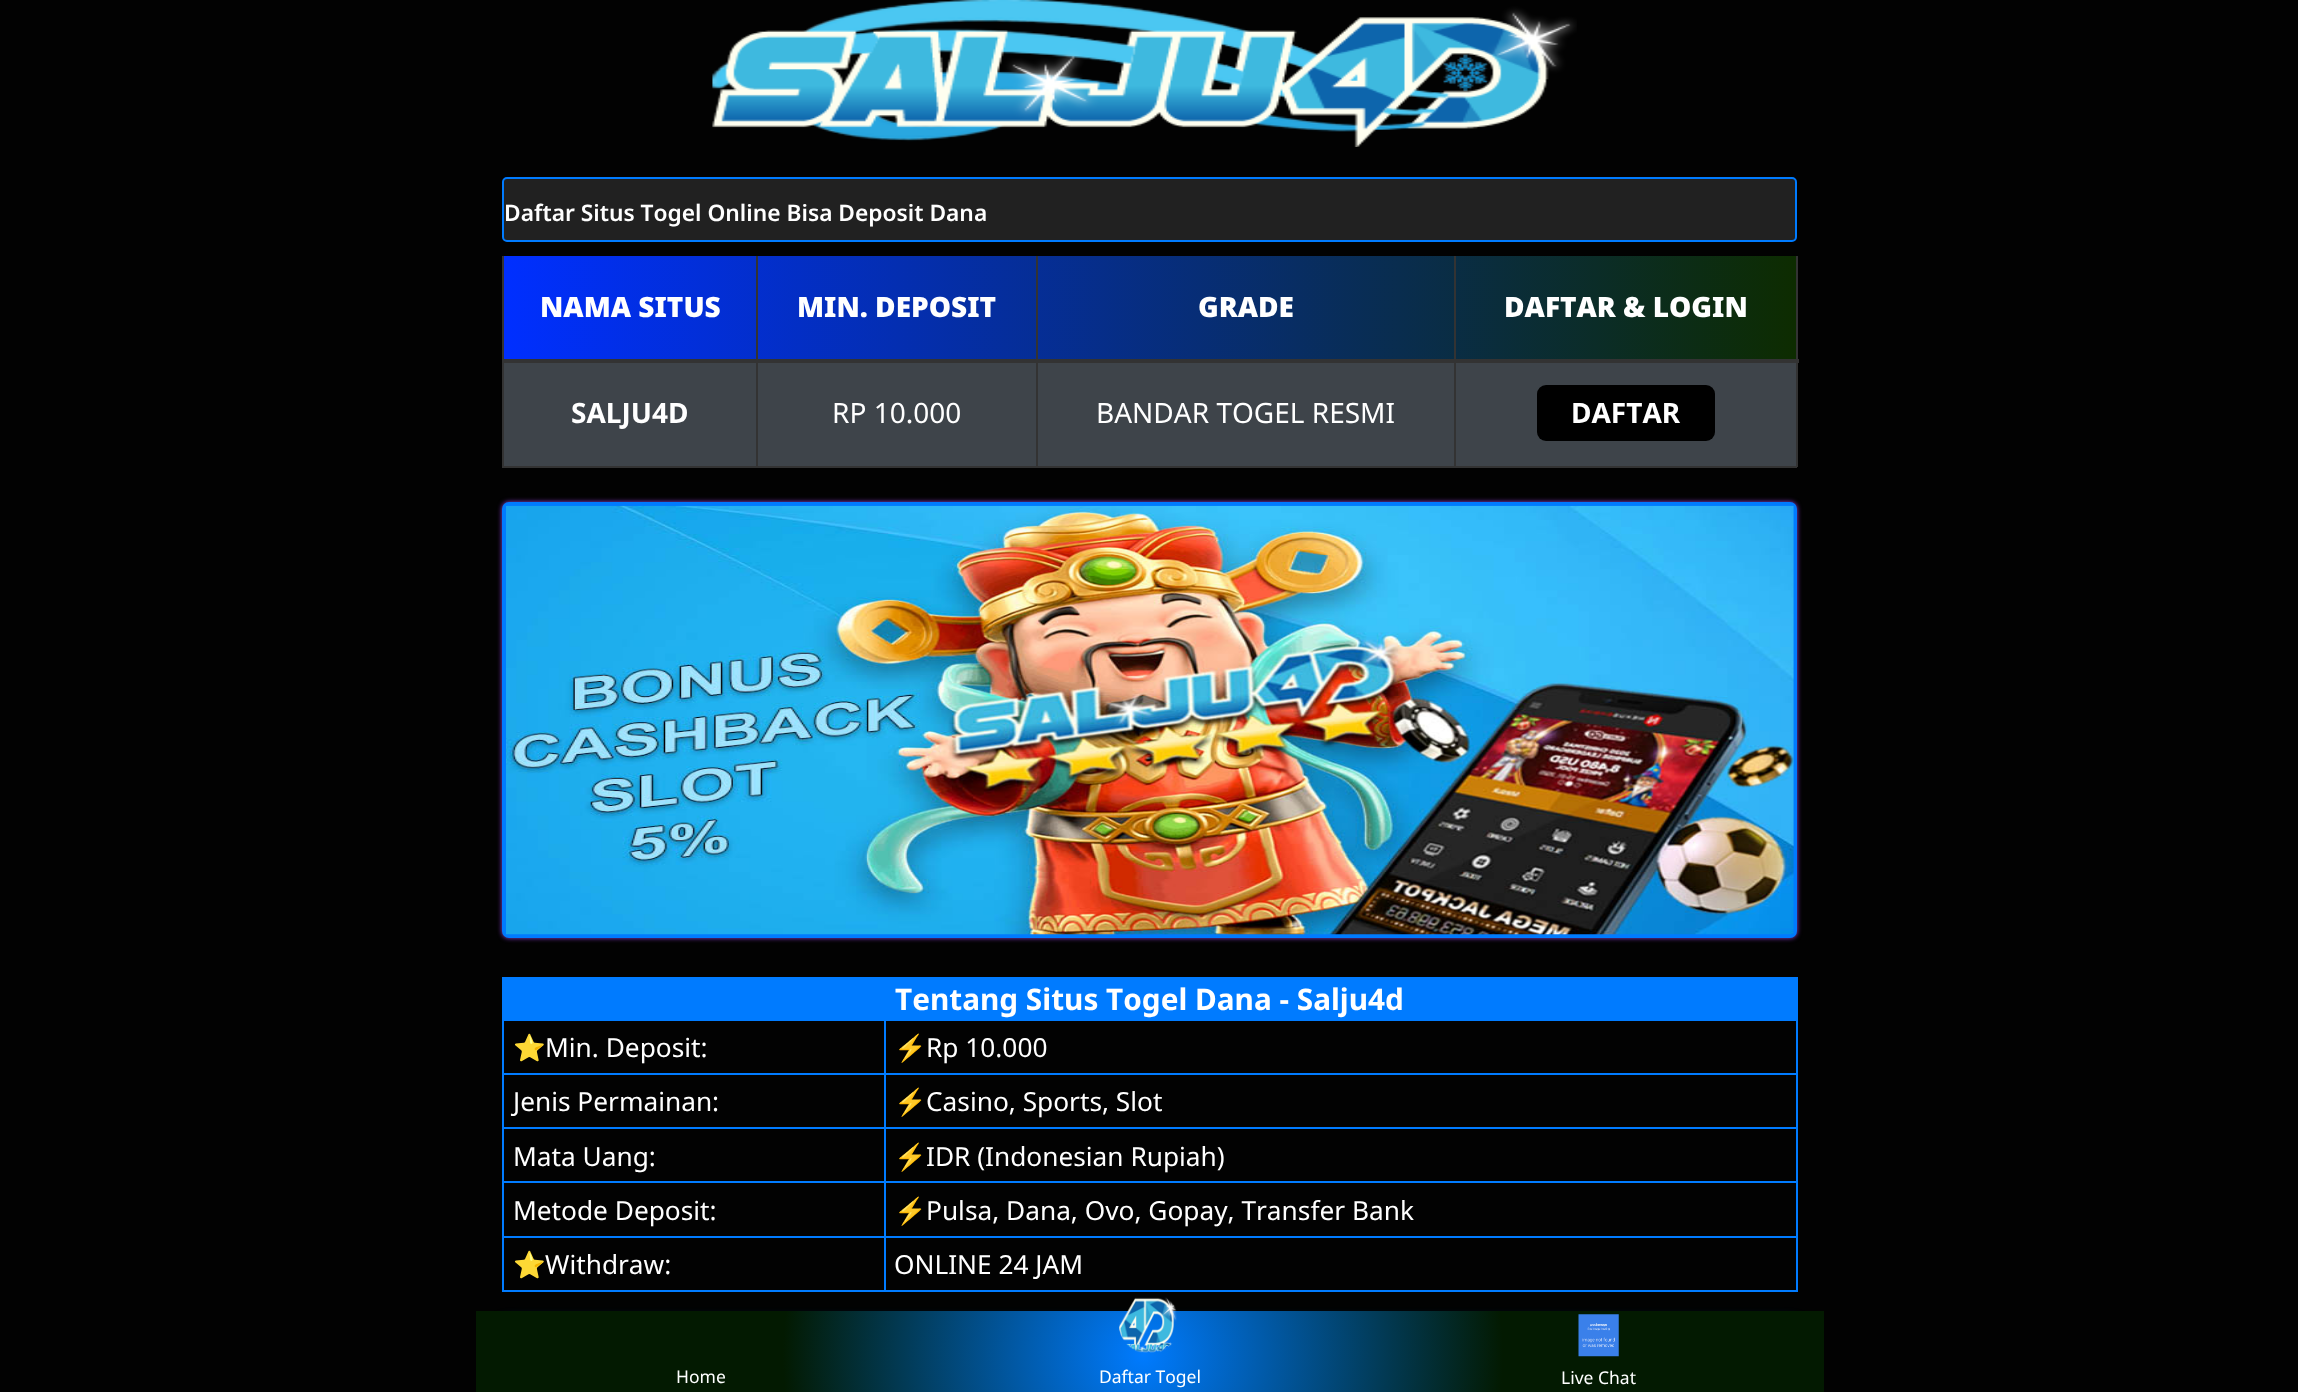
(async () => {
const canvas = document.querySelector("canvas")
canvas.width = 2298
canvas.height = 1392
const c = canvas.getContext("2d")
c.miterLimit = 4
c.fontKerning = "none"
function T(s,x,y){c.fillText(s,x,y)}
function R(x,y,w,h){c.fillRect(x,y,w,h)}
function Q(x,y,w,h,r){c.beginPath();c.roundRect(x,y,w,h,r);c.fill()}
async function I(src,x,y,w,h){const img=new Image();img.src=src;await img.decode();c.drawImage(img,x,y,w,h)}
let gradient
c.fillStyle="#020202"
R(0,0,2298,1392)
await I("1.png",712,0,865,147)
c.fillStyle="#212121"
c.beginPath()
c.roundRect(503,178,1293,63,4)
c.fill()
c.strokeStyle="#007bff"
c.lineWidth=2
c.stroke()
c.font="600 22.75px Noto Sans"
c.fillStyle="#fff"
T("Daftar Situs Togel Online Bisa Deposit Dana",504,221)
gradient = c.createLinearGradient(504,308,1797,308)
gradient.addColorStop(0,"#002fff")
gradient.addColorStop(1,"#0d2c00")
c.fillStyle = gradient
R(504,256,1292,103)
c.font="900 28px Noto Sans"
c.fillStyle="#fff"
T("NAMA SITUS",540,317)
T("MIN. DEPOSIT",797,317)
T("GRADE",1198,317)
c.fillStyle="#333"
R(1796,256,2,211)
R(1454,466,343,2)
c.fillStyle="#3e444a"
R(504,363,1292,103)
c.fillStyle="#333"
R(1454,256,2,211)
R(1036,466,420,2)
R(1036,256,2,211)
R(756,466,282,2)
R(756,256,2,211)
R(502,466,256,2)
R(502,256,2,211)
R(502,359,1297,4)
c.fillStyle="#fff"
T("DAFTAR & LOGIN",1504,317)
c.font="bold 28px Noto Sans"
T("SALJU4D",571,423)
c.font="28px Noto Sans"
T("RP 10.000",832,423)
T("BANDAR TOGEL RESMI",1096,423)
c.fillStyle="#000"
Q(1537,385,178,56,9)
c.font="bold 28px Noto Sans"
c.fillStyle="#fff"
T("DAFTAR",1571,423)
c.fillStyle="#9140d6"
c.filter="blur(2.5px)"
c.beginPath()
c.roundRect(502,502,1295,436,7)
c.fill()
c.filter="none"
c.beginPath()
c.roundRect(504,504,1291,432,5)
c.lineWidth=4
c.stroke()
await I("2.png",506,505,1288,430)
c.fillStyle="#007bff"
R(504,979,1292,40)
R(502,977,1295,2)
R(884,1019,913,2)
R(884,1073,913,2)
R(884,1127,913,2)
R(884,1181,913,2)
R(884,1236,913,2)
R(1796,1236,2,56)
R(1796,1181,2,56)
R(1796,1127,2,56)
R(1796,1073,2,56)
R(1796,1019,2,56)
R(1796,977,2,43)
R(884,1290,913,2)
R(884,1236,2,56)
R(502,1236,384,2)
R(884,1181,2,56)
R(502,1181,384,2)
R(884,1127,2,56)
R(502,1127,384,2)
R(884,1073,2,56)
R(502,1073,384,2)
R(884,1019,2,56)
R(502,1019,384,2)
R(502,1290,384,2)
R(502,1236,2,56)
R(502,1181,2,56)
R(502,1127,2,56)
R(502,1073,2,56)
R(502,1019,2,56)
R(502,977,2,43)
c.font="bold 29.75px Noto Sans"
c.fillStyle="#fff"
T("Tentang Situs Togel Dana - Salju4d",895,1010)
c.font="26.25px Noto Color Emoji"
T("⭐",513,1057)
c.font="26.25px Noto Sans"
T("Min. Deposit:",545,1057)
c.font="26.25px Noto Color Emoji"
T("⚡",894,1057)
c.font="26.25px Noto Sans"
T("Rp 10.000",926,1057)
T("Jenis Permainan:",513,1111)
c.font="26.25px Noto Color Emoji"
T("⚡",894,1111)
c.font="26.25px Noto Sans"
T("Casino, Sports, Slot",926,1111)
T("Mata Uang:",513,1166)
c.font="26.25px Noto Color Emoji"
T("⚡",894,1166)
c.font="26.25px Noto Sans"
T("IDR (Indonesian Rupiah)",926,1166)
T("Metode Deposit:",513,1220)
c.font="26.25px Noto Color Emoji"
T("⚡",894,1220)
c.font="26.25px Noto Sans"
T("Pulsa, Dana, Ovo, Gopay, Transfer Bank",926,1220)
c.font="26.25px Noto Color Emoji"
T("⭐",513,1274)
c.font="26.25px Noto Sans"
T("Withdraw:",545,1274)
T("ONLINE 24 JAM",894,1274)
c.fillStyle="#007bff"
c.filter="blur(7px)"
c.beginPath()
c.roundRect(495,1323,1309,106,16)
c.fill()
c.filter="none"
gradient = c.createRadialGradient(1143,1355,0,1143,1355,375)
gradient.addColorStop(0,"#007bff")
gradient.addColorStop(.96,"#031a01")
c.fillStyle = gradient
R(476,1311,1348,81)
c.font="17.5px Noto Sans"
c.fillStyle="#fff"
T("Home",676,1383)
await I("3.png",1119,1297,58,56)
T("Daftar Togel",1099,1383)
await I("4.png",1578,1314,41,43)
T("Live Chat",1561,1384)
})()
